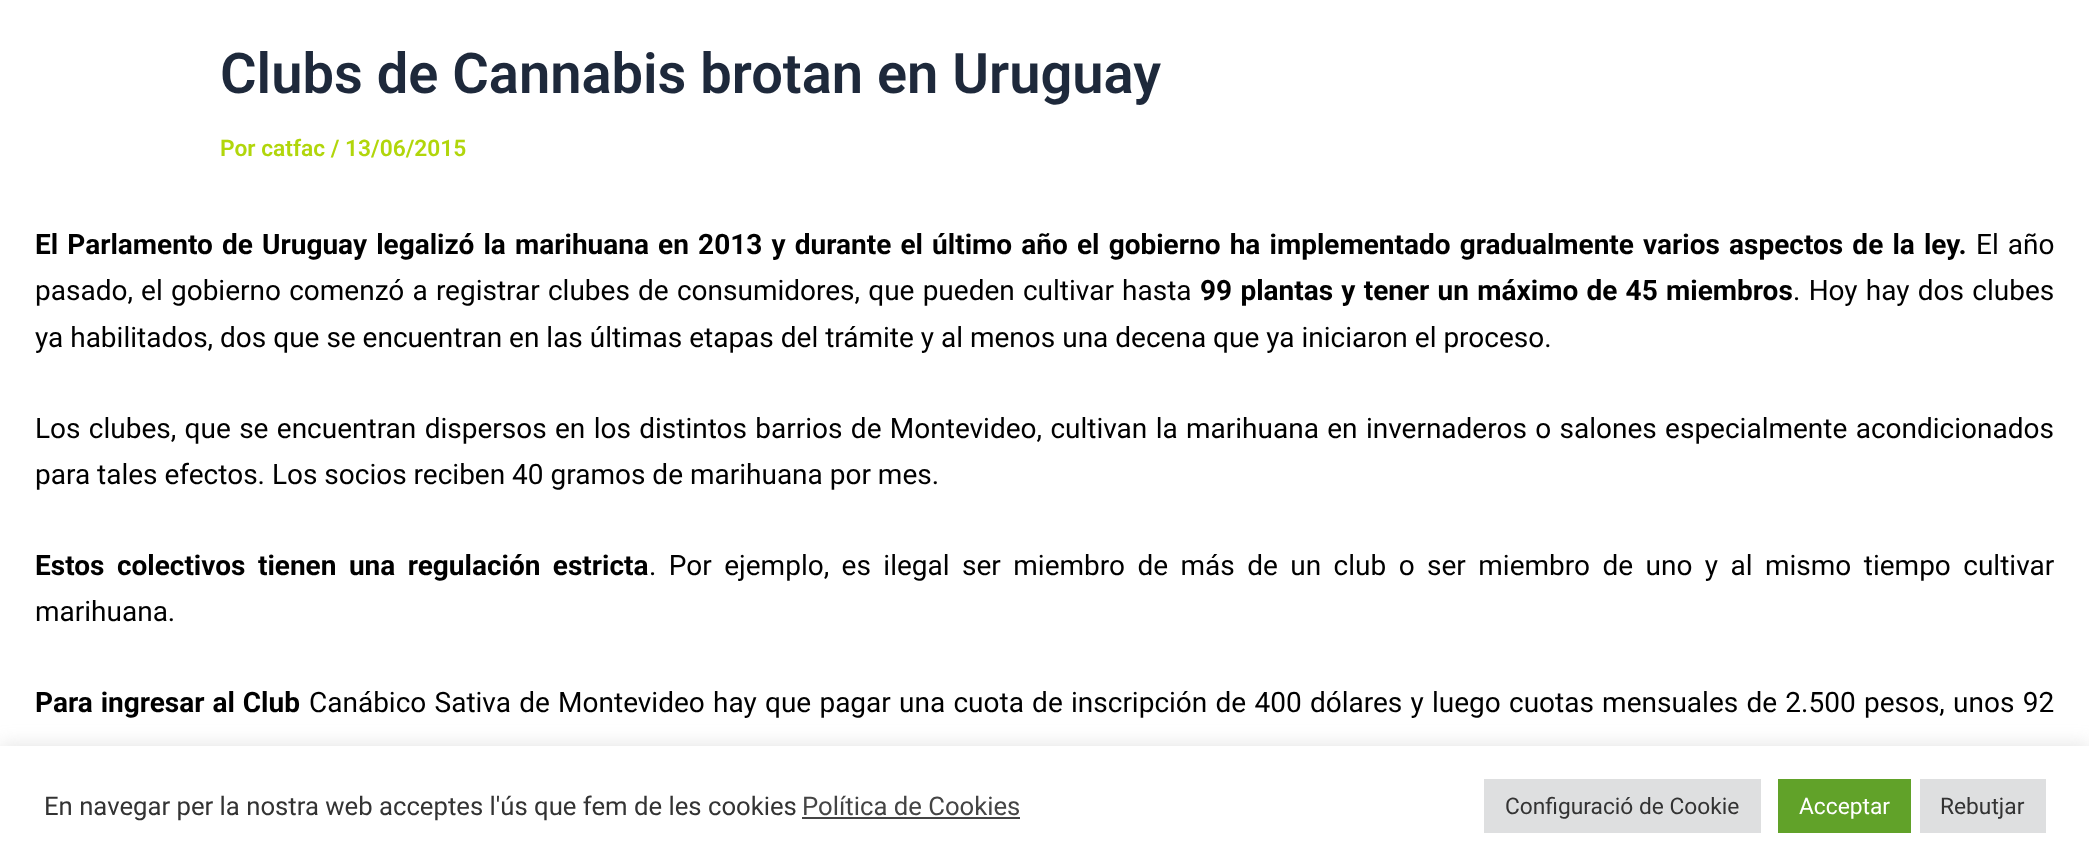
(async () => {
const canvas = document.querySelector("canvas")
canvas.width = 2089
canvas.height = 866
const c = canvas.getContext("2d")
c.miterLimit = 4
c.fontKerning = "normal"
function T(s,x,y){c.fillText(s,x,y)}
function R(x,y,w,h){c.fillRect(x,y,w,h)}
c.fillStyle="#fff"
R(0,0,2089,866)
c.font="600 56px Roboto"
c.fillStyle="#1e293b"
T("Clubs de Cannabis brotan en Uruguay",220,93)
c.font="600 22.75px Roboto"
c.fillStyle="#b1d60b"
T("Por catfac / 13/06/2015",220,156)
c.wordSpacing="2.2px"
c.font="bold 28px Roboto"
c.fillStyle="#000"
T("El Parlamento de Uruguay legalizó la marihuana en 2013 y durante el último año el gobierno ha implementado gradualmente varios aspectos de la ley.",35,254)
c.font="28px Roboto"
T("El año",1976,254)
c.wordSpacing="1.25px"
T("pasado, el gobierno comenzó a registrar clubes de consumidores, que pueden cultivar hasta",35,300)
c.wordSpacing="1.3px"
c.font="bold 28px Roboto"
T("99 plantas y tener un máximo de 45 miembros",1200,300)
c.font="28px Roboto"
T(". Hoy hay dos clubes",1793,300)
c.wordSpacing="0px"
T("ya habilitados, dos que se encuentran en las últimas etapas del trámite y al menos una decena que ya iniciaron el proceso.",35,347)
c.wordSpacing="1.4px"
T("Los clubes, que se encuentran dispersos en los distintos barrios de Montevideo, cultivan la marihuana en invernaderos o salones especialmente acondicionados",35,438)
c.wordSpacing="0px"
T("para tales efectos. Los socios reciben 40 gramos de marihuana por mes.",35,484)
c.wordSpacing="5.5px"
c.font="bold 28px Roboto"
T("Estos colectivos tienen una regulación estricta",35,575)
c.font="28px Roboto"
T(". Por ejemplo, es ilegal ser miembro de más de un club o ser miembro de uno y al mismo tiempo cultivar",649,575)
c.wordSpacing="0px"
T("marihuana.",35,621)
c.wordSpacing="1px"
c.font="bold 28px Roboto"
T("Para ingresar al Club",35,712)
c.wordSpacing="1.3px"
c.font="28px Roboto"
T("Canábico Sativa de Montevideo hay que pagar una cuota de inscripción de 400 dólares y luego cuotas mensuales de 2.500 pesos, unos 92",309,712)
c.fillStyle="#acabab4d"
c.filter="blur(9px)"
c.beginPath()
c.rect(0,744,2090,121)
c.fill()
c.filter="none"
c.fillStyle="#fff"
R(0,746,2089,120)
c.wordSpacing="0px"
c.font="25.7px Roboto"
c.fillStyle="#333"
T("En navegar per la nostra web acceptes l'ús que fem de les cookies",44,815)
c.fillStyle="#444"
T("Política de Cookies",802,815)
R(802,817,218,2)
c.fillStyle="#dedfe0"
R(1484,779,277,54)
c.font="22.75px Roboto"
c.fillStyle="#333"
T("Configuració de Cookie",1505,814)
c.fillStyle="#61a229"
R(1778,779,133,54)
c.fillStyle="#fff"
T("Acceptar",1799,814)
c.fillStyle="#dedfe0"
R(1920,779,126,54)
c.fillStyle="#333"
T("Rebutjar",1940,814)
})()
